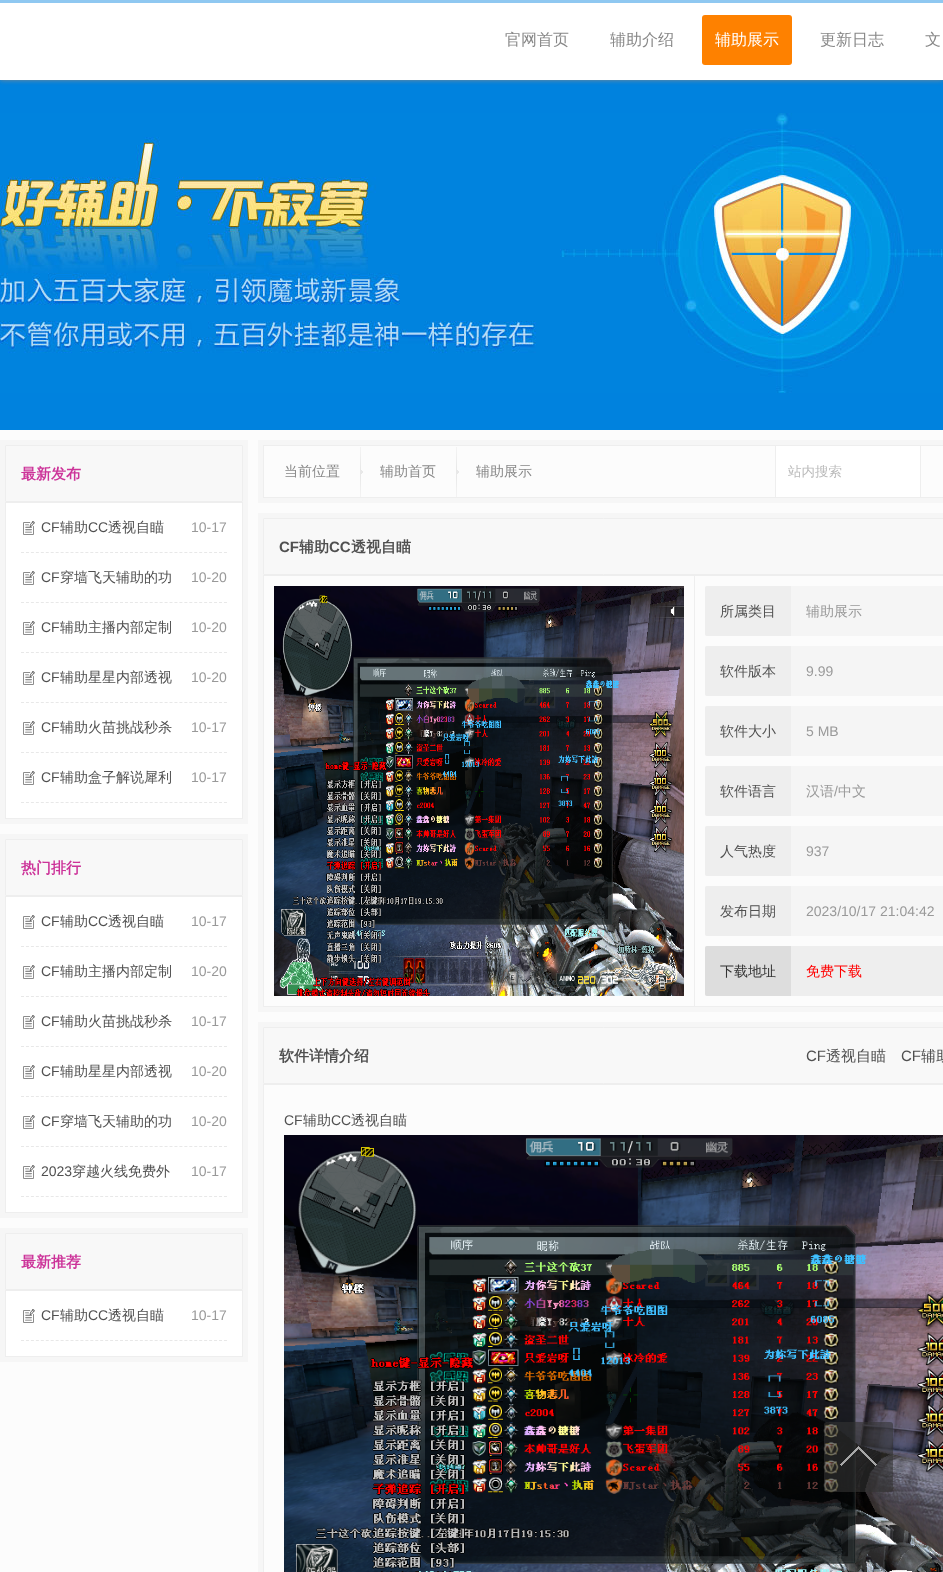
(async () => {
const canvas = document.querySelector("canvas")
canvas.width = 943
canvas.height = 1572
const c = canvas.getContext("2d")
c.miterLimit = 4
c.fontKerning = "normal"
function T(s,x,y){c.fillText(s,x,y)}
function R(x,y,w,h){c.fillRect(x,y,w,h)}
function Q(x,y,w,h,r){c.beginPath();c.roundRect(x,y,w,h,r);c.fill()}
async function I(src,x,y,w,h){const img=new Image();img.src=src;await img.decode();c.drawImage(img,x,y,w,h)}
let path
c.fillStyle="#fcfcfc"
R(0,0,943,1572)
c.fillStyle="#0082de"
R(0,80,943,350)
c.fillStyle="#888"
c.filter="blur(2.5px)"
c.beginPath()
c.rect(0,0,943,80)
c.fill()
c.filter="none"
c.fillStyle="#8fc8f1"
R(0,0,943,3)
c.fillStyle="#fff"
R(0,3,943,77)
c.font="500 16px WenQuanYi Zen Hei"
c.fillStyle="#888"
T("官网首页",505,45)
T("辅助介绍",610,45)
c.fillStyle="#fe8100"
Q(702,15,90,50,3)
c.fillStyle="#fff"
T("辅助展示",715,45)
c.fillStyle="#888"
T("更新日志",820,45)
T("文",925,45)
await I("1.png",0,113,943,280)
c.fillStyle="#fff"
R(6,503,236,315)
c.strokeStyle="#f6f6f6"
c.lineWidth=5
c.strokeRect(2.5,442.5,243,379)
c.fillStyle="#f8f8f8"
c.beginPath()
c.rect(5.5,445.5,237,56)
c.fill()
c.strokeStyle="#eee"
c.lineWidth=1
c.stroke()
c.font="bold 15px WenQuanYi Zen Hei"
c.fillStyle="#c39"
T("最新发布",21,479)
c.strokeRect(5.5,502.5,237,316)
await I("2.png",23,521,12,14)
path = new Path2D("M21 552.5h206")
c.strokeStyle="#e8e8e8"
c.setLineDash([3,1.95])
c.stroke(path)
c.font="14px Liberation Sans"
c.fillStyle="#505050"
T("CF",41,532)
c.font="500 14px WenQuanYi Zen Hei"
T("辅助",60,532)
c.font="14px Liberation Sans"
T("CC",88,532)
c.font="500 14px WenQuanYi Zen Hei"
T("透视自瞄",108,532)
c.font="14px Liberation Sans"
c.fillStyle="#999"
T("10-17",191,532)
await I("2.png",23,571,12,14)
path = new Path2D("M21 602.5h206")
c.stroke(path)
c.fillStyle="#505050"
T("CF",41,582)
c.font="500 14px WenQuanYi Zen Hei"
T("穿墙飞天辅助的功",60,582)
c.font="14px Liberation Sans"
c.fillStyle="#999"
T("10-20",191,582)
await I("2.png",23,621,12,14)
path = new Path2D("M21 652.5h206")
c.stroke(path)
c.fillStyle="#505050"
T("CF",41,632)
c.font="500 14px WenQuanYi Zen Hei"
T("辅助主播内部定制",60,632)
c.font="14px Liberation Sans"
c.fillStyle="#999"
T("10-20",191,632)
await I("2.png",23,671,12,14)
path = new Path2D("M21 702.5h206")
c.stroke(path)
c.fillStyle="#505050"
T("CF",41,682)
c.font="500 14px WenQuanYi Zen Hei"
T("辅助星星内部透视",60,682)
c.font="14px Liberation Sans"
c.fillStyle="#999"
T("10-20",191,682)
await I("2.png",23,721,12,14)
path = new Path2D("M21 752.5h206")
c.stroke(path)
c.fillStyle="#505050"
T("CF",41,732)
c.font="500 14px WenQuanYi Zen Hei"
T("辅助火苗挑战秒杀",60,732)
c.font="14px Liberation Sans"
c.fillStyle="#999"
T("10-17",191,732)
await I("2.png",23,771,12,14)
path = new Path2D("M21 802.5h206")
c.stroke(path)
c.fillStyle="#505050"
T("CF",41,782)
c.font="500 14px WenQuanYi Zen Hei"
T("辅助盒子解说犀利",60,782)
c.font="14px Liberation Sans"
c.fillStyle="#999"
T("10-17",191,782)
c.fillStyle="#fff"
R(6,897,236,315)
c.strokeStyle="#f6f6f6"
c.lineWidth=5
c.setLineDash([])
c.strokeRect(2.5,836.5,243,379)
c.fillStyle="#f8f8f8"
c.beginPath()
c.rect(5.5,839.5,237,56)
c.fill()
c.strokeStyle="#eee"
c.lineWidth=1
c.stroke()
c.font="bold 15px WenQuanYi Zen Hei"
c.fillStyle="#c39"
T("热门排行",21,873)
c.strokeRect(5.5,896.5,237,316)
await I("2.png",23,915,12,14)
path = new Path2D("M21 946.5h206")
c.strokeStyle="#e8e8e8"
c.setLineDash([3,1.95])
c.stroke(path)
c.font="14px Liberation Sans"
c.fillStyle="#505050"
T("CF",41,926)
c.font="500 14px WenQuanYi Zen Hei"
T("辅助",60,926)
c.font="14px Liberation Sans"
T("CC",88,926)
c.font="500 14px WenQuanYi Zen Hei"
T("透视自瞄",108,926)
c.font="14px Liberation Sans"
c.fillStyle="#999"
T("10-17",191,926)
await I("2.png",23,965,12,14)
path = new Path2D("M21 996.5h206")
c.stroke(path)
c.fillStyle="#505050"
T("CF",41,976)
c.font="500 14px WenQuanYi Zen Hei"
T("辅助主播内部定制",60,976)
c.font="14px Liberation Sans"
c.fillStyle="#999"
T("10-20",191,976)
await I("2.png",23,1015,12,14)
path = new Path2D("M21 1046.5h206")
c.stroke(path)
c.fillStyle="#505050"
T("CF",41,1026)
c.font="500 14px WenQuanYi Zen Hei"
T("辅助火苗挑战秒杀",60,1026)
c.font="14px Liberation Sans"
c.fillStyle="#999"
T("10-17",191,1026)
await I("2.png",23,1065,12,14)
path = new Path2D("M21 1096.5h206")
c.stroke(path)
c.fillStyle="#505050"
T("CF",41,1076)
c.font="500 14px WenQuanYi Zen Hei"
T("辅助星星内部透视",60,1076)
c.font="14px Liberation Sans"
c.fillStyle="#999"
T("10-20",191,1076)
await I("2.png",23,1115,12,14)
path = new Path2D("M21 1146.5h206")
c.stroke(path)
c.fillStyle="#505050"
T("CF",41,1126)
c.font="500 14px WenQuanYi Zen Hei"
T("穿墙飞天辅助的功",60,1126)
c.font="14px Liberation Sans"
c.fillStyle="#999"
T("10-20",191,1126)
await I("2.png",23,1165,12,14)
path = new Path2D("M21 1196.5h206")
c.stroke(path)
c.fillStyle="#505050"
T("2023",41,1176)
c.font="500 14px WenQuanYi Zen Hei"
T("穿越火线免费外",72,1176)
c.font="14px Liberation Sans"
c.fillStyle="#999"
T("10-17",191,1176)
c.fillStyle="#fff"
R(6,1291,236,65)
c.strokeStyle="#f6f6f6"
c.lineWidth=5
c.setLineDash([])
c.strokeRect(2.5,1230.5,243,129)
c.fillStyle="#f8f8f8"
c.beginPath()
c.rect(5.5,1233.5,237,56)
c.fill()
c.strokeStyle="#eee"
c.lineWidth=1
c.stroke()
c.font="bold 15px WenQuanYi Zen Hei"
c.fillStyle="#c39"
T("最新推荐",21,1267)
c.strokeRect(5.5,1290.5,237,66)
await I("2.png",23,1309,12,14)
path = new Path2D("M21 1340.5h206")
c.strokeStyle="#e8e8e8"
c.setLineDash([3,1.95])
c.stroke(path)
c.font="14px Liberation Sans"
c.fillStyle="#505050"
T("CF",41,1320)
c.font="500 14px WenQuanYi Zen Hei"
T("辅助",60,1320)
c.font="14px Liberation Sans"
T("CC",88,1320)
c.font="500 14px WenQuanYi Zen Hei"
T("透视自瞄",108,1320)
c.font="14px Liberation Sans"
c.fillStyle="#999"
T("10-17",191,1320)
c.strokeStyle="#f6f6f6"
c.lineWidth=5
c.setLineDash([])
c.strokeRect(260.5,442.5,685,58)
c.strokeStyle="#eee"
c.lineWidth=1
c.strokeRect(263.5,445.5,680,52)
c.font="500 14px WenQuanYi Zen Hei"
c.fillStyle="#888"
T("当前位置",284,476)
await I("3.png",360,447,3,50)
T("辅助首页",380,476)
await I("3.png",456,447,3,50)
T("辅助展示",476,476)
c.fillStyle="#fff"
R(776,446,144,51)
c.fillStyle="#eee"
R(920,446,1,51)
R(775,446,1,51)
c.font="500 13.5px WenQuanYi Zen Hei"
c.fillStyle="#bbb"
T("站内搜索",788,476)
c.strokeStyle="#f6f6f6"
c.lineWidth=5
c.strokeRect(260.5,515.5,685,494)
c.fillStyle="#f8f8f8"
c.beginPath()
c.rect(263.5,518.5,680,56)
c.fill()
c.strokeStyle="#eee"
c.lineWidth=1
c.stroke()
c.font="bold 15px Liberation Sans"
c.fillStyle="#505050"
T("CF",279,552)
c.font="bold 15px WenQuanYi Zen Hei"
T("辅助",299,552)
c.font="bold 15px Liberation Sans"
T("CC",329,552)
c.font="bold 15px WenQuanYi Zen Hei"
T("透视自瞄",351,552)
c.fillStyle="#eee"
R(263,575,431,1)
R(263,1006,431,1)
R(263,575,1,432)
await I("4.png",274,586,410,410)
c.strokeRect(694.5,575.5,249,431)
c.fillStyle="#f5f5f5"
Q(705,586,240,50,2)
c.fillStyle="#eee"
c.beginPath()
c.roundRect(705,586,86,50,[2,0,0,2])
c.fill()
c.font="500 14px WenQuanYi Zen Hei"
c.fillStyle="#505050"
T("所属类目",720,616)
c.fillStyle="#999"
T("辅助展示",806,616)
c.fillStyle="#f5f5f5"
Q(705,646,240,50,2)
c.fillStyle="#eee"
c.beginPath()
c.roundRect(705,646,86,50,[2,0,0,2])
c.fill()
c.fillStyle="#505050"
T("软件版本",720,676)
c.font="14px Liberation Sans"
c.fillStyle="#999"
T("9.99",806,676)
c.fillStyle="#f5f5f5"
Q(705,706,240,50,2)
c.fillStyle="#eee"
c.beginPath()
c.roundRect(705,706,86,50,[2,0,0,2])
c.fill()
c.font="500 14px WenQuanYi Zen Hei"
c.fillStyle="#505050"
T("软件大小",720,736)
c.font="14px Liberation Sans"
c.fillStyle="#999"
T("5 MB",806,736)
c.fillStyle="#f5f5f5"
Q(705,766,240,50,2)
c.fillStyle="#eee"
c.beginPath()
c.roundRect(705,766,86,50,[2,0,0,2])
c.fill()
c.font="500 14px WenQuanYi Zen Hei"
c.fillStyle="#505050"
T("软件语言",720,796)
c.fillStyle="#999"
T("汉语",806,796)
c.font="14px Liberation Sans"
T("/",834,796)
c.font="500 14px WenQuanYi Zen Hei"
T("中文",838,796)
c.fillStyle="#f5f5f5"
Q(705,826,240,50,2)
c.fillStyle="#eee"
c.beginPath()
c.roundRect(705,826,86,50,[2,0,0,2])
c.fill()
c.fillStyle="#505050"
T("人气热度",720,856)
c.font="14px Liberation Sans"
c.fillStyle="#999"
T("937",806,856)
c.fillStyle="#f5f5f5"
Q(705,886,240,50,2)
c.fillStyle="#eee"
c.beginPath()
c.roundRect(705,886,86,50,[2,0,0,2])
c.fill()
c.font="500 14px WenQuanYi Zen Hei"
c.fillStyle="#505050"
T("发布日期",720,916)
c.font="14px Liberation Sans"
c.fillStyle="#999"
T("2023/10/17 21:04:42",806,916)
c.fillStyle="#eee"
Q(705,946,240,50,2)
c.fillStyle="#ddd"
c.beginPath()
c.roundRect(705,946,86,50,[2,0,0,2])
c.fill()
c.font="500 14px WenQuanYi Zen Hei"
c.fillStyle="#333"
T("下载地址",720,976)
c.fillStyle="#f00"
T("免费下载",806,976)
c.strokeStyle="#f6f6f6"
c.lineWidth=5
c.strokeRect(260.5,1024.5,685,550)
c.fillStyle="#f8f8f8"
c.beginPath()
c.rect(263.5,1027.5,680,56)
c.fill()
c.strokeStyle="#eee"
c.lineWidth=1
c.stroke()
c.font="bold 15px WenQuanYi Zen Hei"
c.fillStyle="#505050"
T("软件详情介绍",279,1061)
c.font="15px Liberation Sans"
T("CF",806,1061)
c.font="500 15px WenQuanYi Zen Hei"
T("透视自瞄",826,1061)
c.font="15px Liberation Sans"
T("CF",901,1061)
c.font="500 15px WenQuanYi Zen Hei"
T("辅助",921,1061)
c.strokeRect(263.5,1084.5,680,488)
c.font="14px Liberation Sans"
T("CF",284,1125)
c.font="500 14px WenQuanYi Zen Hei"
T("辅助",303,1125)
c.font="14px Liberation Sans"
T("CC",331,1125)
c.font="500 14px WenQuanYi Zen Hei"
T("透视自瞄",351,1125)
await I("5.png",284,1135,659,437)
c.fillStyle="#33333399"
Q(824,1422,69,70,3)
await I("6.png",840,1446,37,20)
})()
